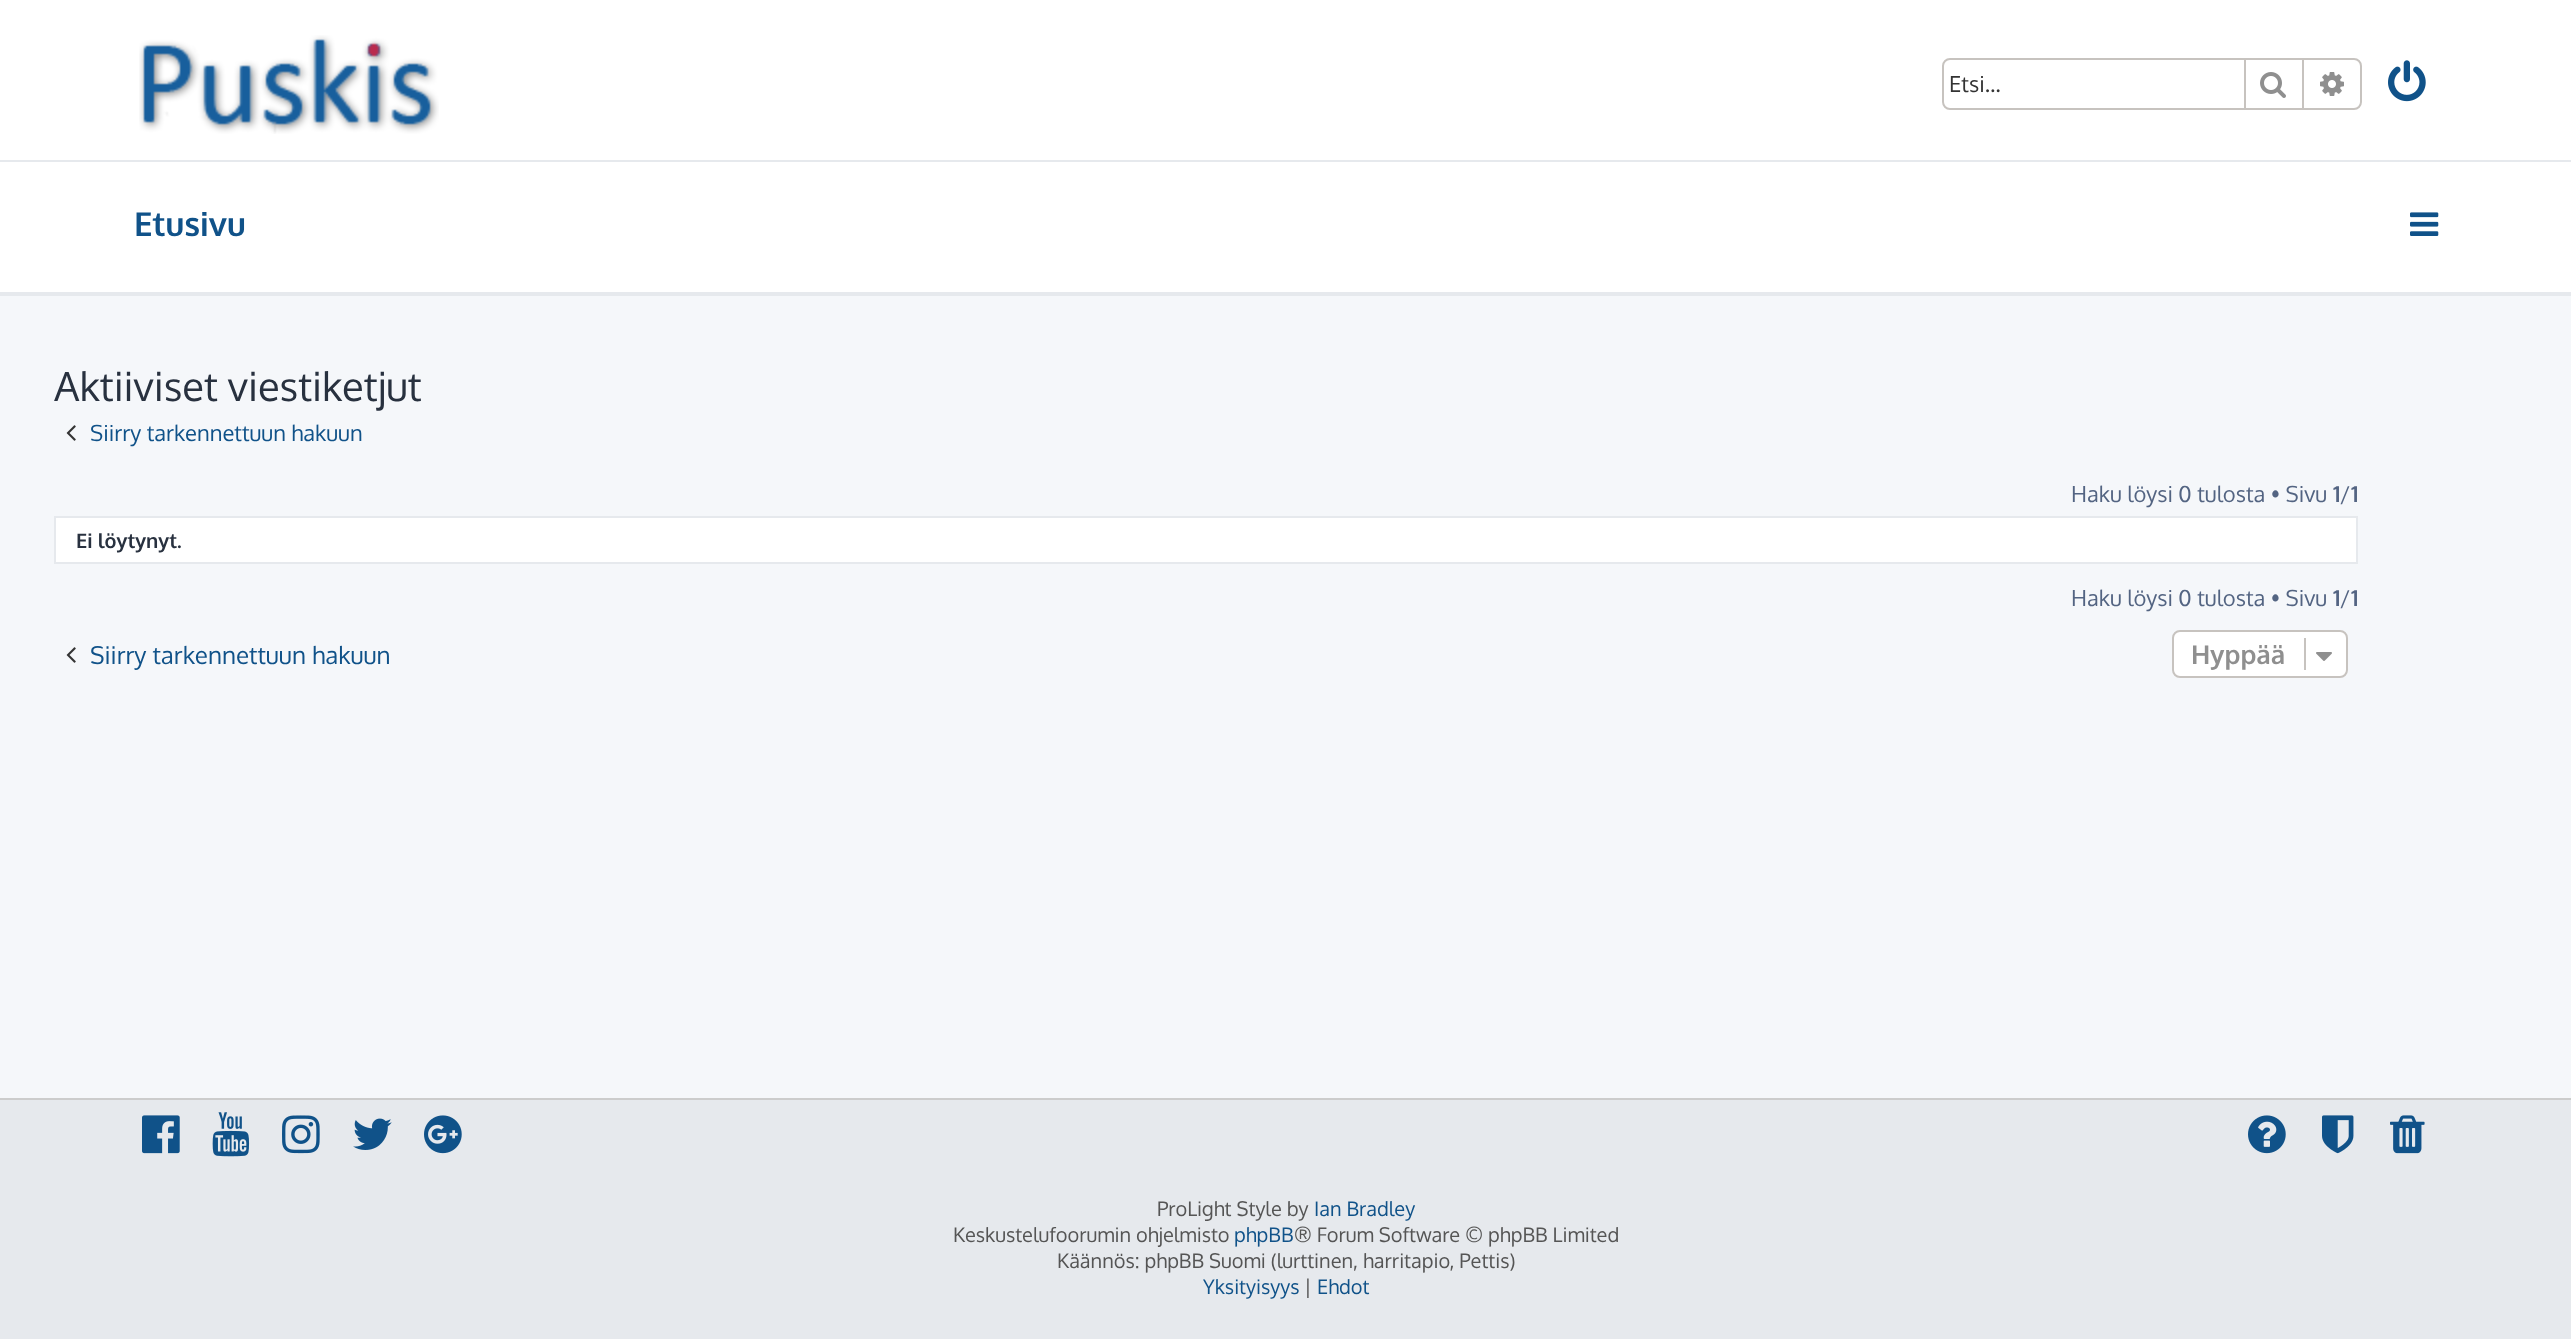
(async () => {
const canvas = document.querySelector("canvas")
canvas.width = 2571
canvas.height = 1339
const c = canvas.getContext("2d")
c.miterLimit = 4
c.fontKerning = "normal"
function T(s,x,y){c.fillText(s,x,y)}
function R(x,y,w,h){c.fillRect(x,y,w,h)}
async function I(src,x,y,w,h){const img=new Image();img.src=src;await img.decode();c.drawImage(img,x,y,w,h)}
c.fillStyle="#f5f7fa"
R(0,0,2571,1339)
c.fillStyle="#fff"
R(0,0,2571,160)
c.fillStyle="#e6e9ed"
R(0,160,2571,2)
await I("1.png",139,35,300,99)
c.beginPath()
c.roundRect(1943,59,418,50,7)
c.strokeStyle="#c7c3bf"
c.lineWidth=2
c.stroke()
c.font="22px Oxygen"
c.fillStyle="#333"
T("Etsi…",1949,92)
c.fillStyle="#c7c3bf"
R(2302,60,2,48)
R(2244,60,2,48)
await I("2.png",2260,72,26,26)
await I("3.png",2320,72,24,24)
await I("4.png",2388,60,38,42)
c.fillStyle="#fff"
R(0,162,2571,130)
c.fillStyle="#e6e9ed"
R(0,292,2571,4)
c.font="bold 33px Oxygen"
c.fillStyle="#105289"
T("Etusivu",134,236)
await I("5.png",2410,212,29,24)
c.font="40px Oxygen"
c.fillStyle="#28313f"
T("Aktiiviset viestiketjut",54,401)
await I("6.png",66,425,10,16)
c.font="22px Oxygen"
c.fillStyle="#105289"
T("Siirry tarkennettuun hakuun",90,441)
c.fillStyle="#536482"
T("Haku löysi 0 tulosta • Sivu",2071,502)
c.font="bold 22px Oxygen"
T("1",2333,502)
c.font="22px Oxygen"
T("/",2340,502)
c.font="bold 22px Oxygen"
T("1",2351,502)
c.fillStyle="#fff"
c.beginPath()
c.rect(55,517,2302,46)
c.fill()
c.strokeStyle="#e6e9ed"
c.stroke()
c.font="bold 20px Oxygen"
c.fillStyle="#28313f"
T("Ei löytynyt.",76,548)
c.font="22px Oxygen"
c.fillStyle="#536482"
T("Haku löysi 0 tulosta • Sivu",2071,606)
c.font="bold 22px Oxygen"
T("1",2333,606)
c.font="22px Oxygen"
T("/",2340,606)
c.font="bold 22px Oxygen"
T("1",2351,606)
await I("6.png",66,647,10,16)
c.font="24.25px Oxygen"
c.fillStyle="#105289"
T("Siirry tarkennettuun hakuun",90,664)
c.fillStyle="#fff"
c.beginPath()
c.roundRect(2173,631,174,46,7)
c.fill()
c.strokeStyle="#c7c3bf"
c.stroke()
c.font="bold 26px Oxygen"
c.fillStyle="#8f8f8f"
T("Hyppää",2191,664)
c.fillStyle="#c7c3bf"
R(2304,638,2,32)
await I("7.png",2316,652,16,9)
c.fillStyle="#e6e9ed"
R(0,1100,2571,239)
c.fillStyle="#ccc"
R(0,1098,2571,2)
await I("8.png",142,1115,38,39)
await I("9.png",212,1112,38,45)
await I("10.png",282,1115,38,39)
await I("11.png",353,1118,39,32)
await I("12.png",424,1115,38,39)
await I("13.png",2248,1115,38,39)
await I("14.png",2322,1115,32,39)
await I("15.png",2390,1115,35,39)
c.font="20px Oxygen"
c.fillStyle="#555"
T("ProLight Style by",1157,1216)
c.fillStyle="#105289"
T("Ian Bradley",1314,1216)
c.fillStyle="#555"
T("Keskustelufoorumin ohjelmisto",953,1242)
c.fillStyle="#105289"
T("phpBB",1234,1242)
c.fillStyle="#555"
T("® Forum Software © phpBB Limited",1294,1242)
T("Käännös: phpBB Suomi (lurttinen, harritapio, Pettis)",1057,1268)
c.fillStyle="#105289"
T("Yksityisyys",1203,1294)
c.fillStyle="#555"
T("|",1304,1294)
c.fillStyle="#105289"
T("Ehdot",1317,1294)
})()
